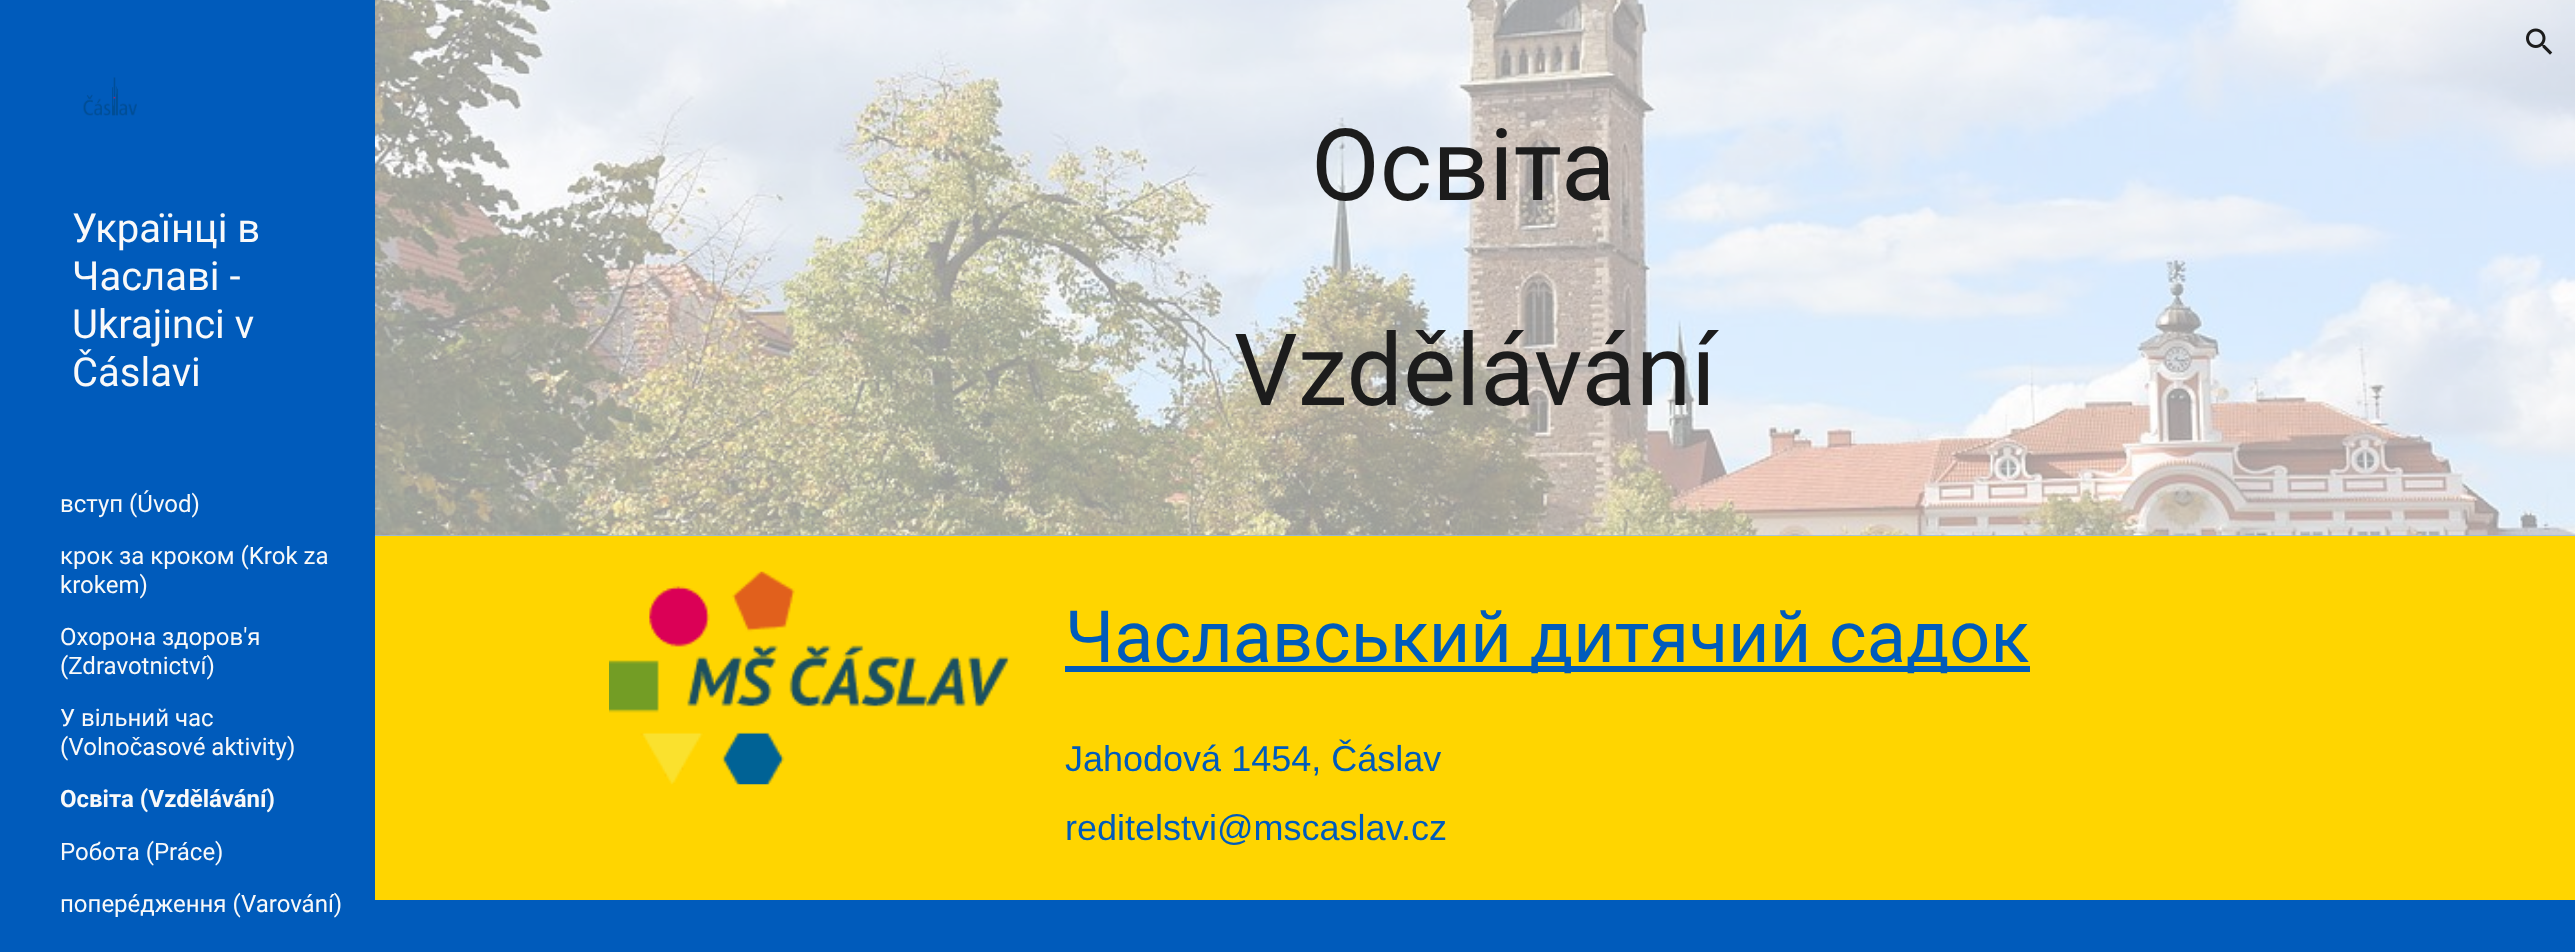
(async () => {
const canvas = document.querySelector("canvas")
canvas.width = 2575
canvas.height = 952
const c = canvas.getContext("2d")
c.miterLimit = 4
c.fontKerning = "normal"
function T(s,x,y){c.fillText(s,x,y)}
function R(x,y,w,h){c.fillRect(x,y,w,h)}
async function I(src,x,y,w,h){const img=new Image();img.src=src;await img.decode();c.drawImage(img,x,y,w,h)}
c.fillStyle="#99bde4"
R(0,0,2575,952)
await I("3.png",375,0,2200,536)
await I("1.png",2526,28,27,27)
c.fillStyle="#005bbb"
R(0,0,375,952)
await I("2.png",83,77,54,39)
c.font="40px Roboto"
c.fillStyle="#f9f9f9"
T("Українці в",72,242)
T("Чаславі -",72,290)
T("Ukrajinci v",72,338)
T("Čáslavi",72,386)
c.font="24px Roboto"
T("вступ (Úvod)",60,512)
T("крок за кроком (Krok za",60,564)
T("krokem)",60,593)
T("Охорона здоров'я",60,645)
T("(Zdravotnictví)",60,674)
T("У вільний час",60,726)
T("(Volnočasové aktivity)",60,755)
c.font="bold 24px Roboto"
T("Освіта (Vzdělávání)",60,807)
c.font="24px Roboto"
T("Робота (Práce)",60,860)
T("попере́дження (Varování)",60,912)
c.font="100px Roboto"
c.fillStyle="#1c1c1c"
T("Освіта",1311,200)
T("Vzdělávání",1234,405)
c.fillStyle="#ffd500"
R(375,536,2200,364)
await I("4.png",609,571,401,214)
c.fillStyle="#005bbb"
R(1065,666,965,6)
c.font="72px Roboto"
T("Чаславський дитячий садок",1065,662)
c.font="36px Liberation Sans"
T("Jahodová 1454, Čáslav",1065,771)
T("reditelstvi@mscaslav.cz",1065,840)
R(375,900,2200,52)
})()
